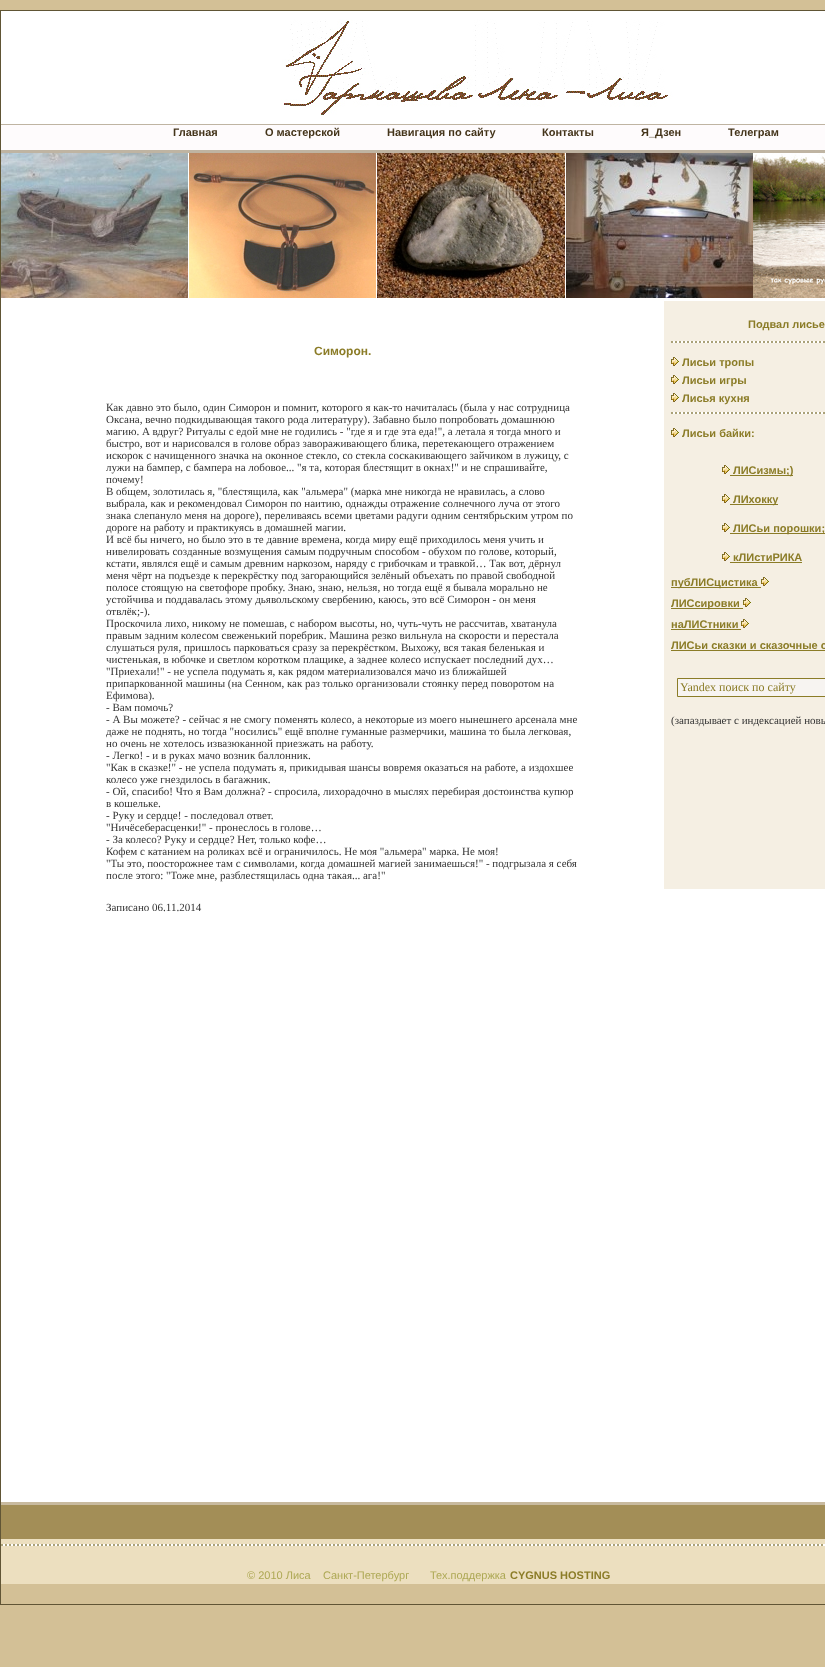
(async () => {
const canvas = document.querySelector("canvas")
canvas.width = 825
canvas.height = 1667
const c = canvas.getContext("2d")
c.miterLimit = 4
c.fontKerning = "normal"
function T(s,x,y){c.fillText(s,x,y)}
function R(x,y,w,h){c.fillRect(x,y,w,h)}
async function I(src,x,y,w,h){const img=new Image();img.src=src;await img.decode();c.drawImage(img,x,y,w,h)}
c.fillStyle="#d3c096"
R(0,0,825,1667)
c.strokeStyle="#605535"
c.strokeRect(.5,10.5,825,1594)
await I("1.png",1,11,824,113)
c.fillStyle="#fefbfc"
R(1,125,824,25)
c.fillStyle="#bfb4a2"
R(1,124,824,1)
R(1,150,824,3)
c.font="bold 11px Liberation Sans"
c.fillStyle="#44341a"
T("Главная",173,136)
T("О мастерской",265,136)
T("Навигация по сайту",387,136)
T("Контакты",542,136)
T("Я_Дзен",641,136)
T("Телеграм",728,136)
await I("2.png",1,153,187,145)
await I("3.png",189,153,181,145)
c.fillStyle="#fff"
R(188,153,1,145)
await I("4.png",370,153,6,145)
await I("5.png",377,153,182,145)
R(376,153,1,145)
await I("6.png",559,153,6,145)
await I("7.png",566,153,182,145)
R(565,153,1,145)
await I("8.png",748,153,5,145)
await I("9.png",753,153,72,145)
R(1,298,824,1204)
c.font="bold 12px Liberation Sans"
c.fillStyle="#8b7c27"
T("Симорон.",314,355)
c.font="11px Liberation Serif"
c.fillStyle="#333"
T("Как давно это было, один Симорон и помнит, которого я как-то начиталась (была у нас сотрудница",106,411)
T("Оксана, вечно подкидывающая такого рода литературу). Забавно было попробовать домашнюю",106,423)
T("магию. А вдруг? Ритуалы с едой мне не годились - \"где я и где эта еда!\", а летала я тогда много и",106,435)
T("быстро, вот и нарисовался в голове образ завораживающего блика, перетекающего отражением",106,447)
T("искорок с начищенного значка на оконное стекло, со стекла соскакивающего зайчиком в лужицу, с",106,459)
T("лужи на бампер, с бампера на лобовое... \"я та, которая блестящит в окнах!\" и не спрашивайте,",106,471)
T("почему!",106,483)
T("В общем, золотилась я, \"блестящила, как \"альмера\" (марка мне никогда не нравилась, а слово",106,495)
T("выбрала, как и рекомендовал Симорон по наитию, однажды отражение солнечного луча от этого",106,507)
T("знака слепануло меня на дороге), переливаясь всеми цветами радуги одним сентябрьским утром по",106,519)
T("дороге на работу и практикуясь в домашней магии.",106,531)
T("И всё бы ничего, но было это в те давние времена, когда миру ещё приходилось меня учить и",106,543)
T("нивелировать созданные возмущения самым подручным способом - обухом по голове, который,",106,555)
T("кстати, являлся ещё и самым древним наркозом, наряду с грибочкам и травкой… Так вот, дёрнул",106,567)
T("меня чёрт на подъезде к перекрёстку под загорающийся зелёный объехать по правой свободной",106,579)
T("полосе стоящую на светофоре пробку. Знаю, знаю, нельзя, но тогда ещё я бывала морально не",106,591)
T("устойчива и поддавалась этому дьявольскому свербению, каюсь, это всё Симорон - он меня",106,603)
T("отвлёк;-).",106,615)
T("Проскочила лихо, никому не помешав, с набором высоты, но, чуть-чуть не рассчитав, хватанула",106,627)
T("правым задним колесом свеженький поребрик. Машина резко вильнула на скорости и перестала",106,639)
T("слушаться руля, пришлось парковаться сразу за перекрёстком. Выхожу, вся такая беленькая и",106,651)
T("чистенькая, в юбочке и светлом коротком плащике, а заднее колесо испускает последний дух…",106,663)
T("\"Приехали!\" - не успела подумать я, как рядом материализовался мачо из ближайшей",106,675)
T("припаркованной машины (на Сенном, как раз только организовали стоянку перед поворотом на",106,687)
T("Ефимова).",106,699)
T("- Вам помочь?",106,711)
T("- А Вы можете? - сейчас я не смогу поменять колесо, а некоторые из моего нынешнего арсенала мне",106,723)
T("даже не поднять, но тогда \"носились\" ещё вполне гуманные размерчики, машина то была легковая,",106,735)
T("но очень не хотелось извазюканной приезжать на работу.",106,747)
T("- Легко! - и в руках мачо возник баллонник.",106,759)
T("\"Как в сказке!\" - не успела подумать я, прикидывая шансы вовремя оказаться на работе, а издохшее",106,771)
T("колесо уже гнездилось в багажник.",106,783)
T("- Ой, спасибо! Что я Вам должна? - спросила, лихорадочно в мыслях перебирая достоинства купюр",106,795)
T("в кошельке.",106,807)
T("- Руку и сердце! - последовал ответ.",106,819)
T("\"Ничёсеберасценки!\" - пронеслось в голове…",106,831)
T("- За колесо? Руку и сердце? Нет, только кофе…",106,843)
T("Кофем с катанием на роликах всё и ограничилось. Не моя \"альмера\" марка. Не моя!",106,855)
T("\"Ты это, поосторожнее там с символами, когда домашней магией занимаешься!\" - подгрызала я себя",106,867)
T("после этого: \"Тоже мне, разблестящилась одна такая... ага!\"",106,879)
T("Записано 06.11.2014",106,911)
c.fillStyle="#f5efe3"
R(664,301,161,588)
c.font="bold 11px Liberation Sans"
c.fillStyle="#8b7c27"
T("Подвал лисье",748,328)
await I("10.png",671,341,154,2)
await I("11.png",671,357,8,9)
T("Лисьи тропы",682,366)
await I("11.png",671,375,8,9)
T("Лисьи игры",682,384)
await I("11.png",671,393,8,9)
T("Лисья кухня",682,402)
await I("10.png",671,412,154,2)
await I("11.png",671,428,8,9)
T("Лисьи байки:",682,437)
await I("11.png",722,465,8,9)
R(730,475,63,1)
T("ЛИСизмы;)",733,474)
await I("11.png",722,494,8,9)
R(730,504,48,1)
T("ЛИхокку",733,503)
await I("11.png",722,523,8,9)
R(730,533,95,1)
T("ЛИСьи порошки;",733,532)
await I("11.png",722,552,8,9)
T("кЛИстиРИКА",733,561)
R(730,562,72,1)
R(671,587,90,1)
T("пубЛИСцистика",671,586)
await I("11.png",761,577,8,9)
R(671,608,72,1)
T("ЛИСсировки",671,607)
await I("11.png",743,598,8,9)
T("наЛИСтники",671,628)
R(671,629,70,1)
await I("11.png",741,619,8,9)
T("ЛИСьи сказки и сказочные с",671,649)
R(671,650,154,1)
c.fillStyle="#f7f4f1"
c.beginPath()
c.rect(677.5,678.5,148,18)
c.fill()
c.strokeStyle="#8b7c27"
c.stroke()
c.font="12px Liberation Serif"
c.fillStyle="#8b7c27"
T("Yandex поиск по сайту",680,691)
c.font="11px Liberation Serif"
c.fillStyle="#333"
T("(запаздывает с индексацией новы",671,724)
c.fillStyle="#a38e57"
R(1,1505,824,34)
c.fillStyle="#c8ba9f"
R(1,1502,824,3)
c.fillStyle="#ecdfbf"
R(1,1539,824,45)
await I("12.png",1,1544,824,2)
c.font="11px Liberation Sans"
c.fillStyle="#ada854"
T("© 2010 Лиса    Санкт-Петербург",247,1579)
T("Тех.поддержка",430,1579)
c.font="bold 11px Liberation Sans"
c.fillStyle="#8b7c27"
T("CYGNUS HOSTING",510,1579)
})()
